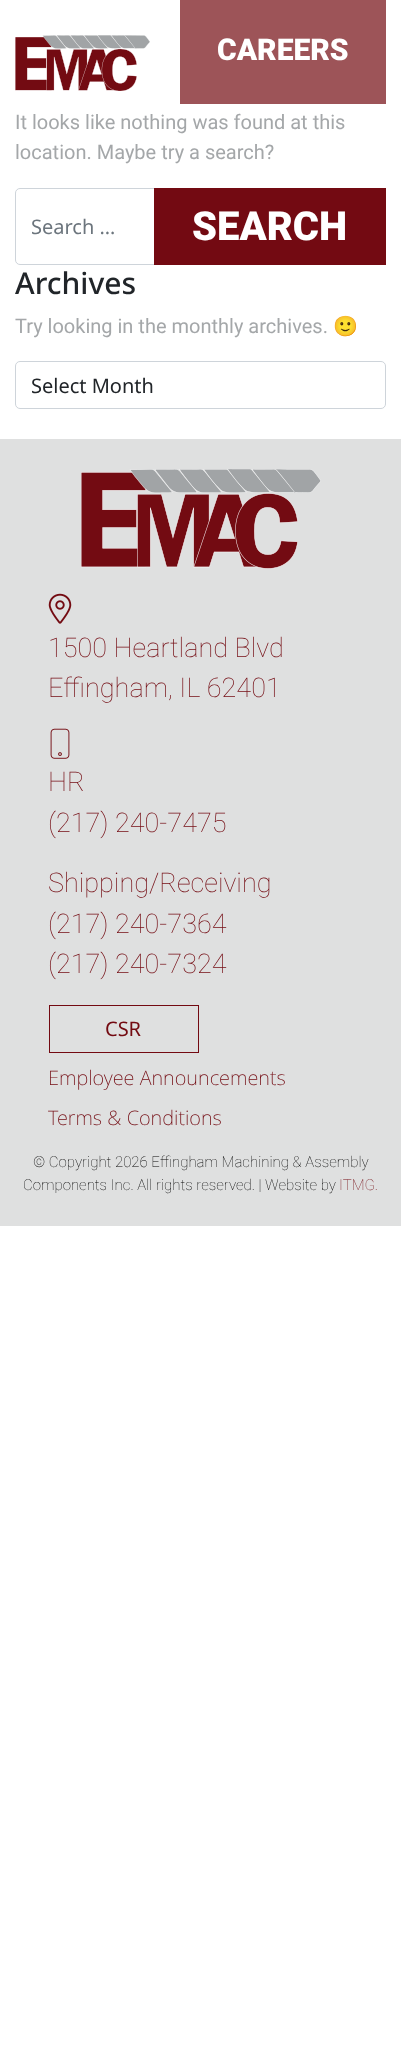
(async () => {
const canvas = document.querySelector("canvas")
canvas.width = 401
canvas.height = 2068
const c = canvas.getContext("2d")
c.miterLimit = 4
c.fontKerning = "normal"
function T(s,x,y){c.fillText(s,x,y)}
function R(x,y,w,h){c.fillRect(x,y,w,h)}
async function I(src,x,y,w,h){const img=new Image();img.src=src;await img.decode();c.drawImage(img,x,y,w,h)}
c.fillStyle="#fff"
R(0,0,401,2068)
await I("1.png",15,35,135,56)
c.fillStyle="#9d5458"
R(180,0,206,104)
c.font="900 30px Roboto"
c.fillStyle="#fff"
T("CAREERS",217,60)
c.font="20px Roboto"
c.fillStyle="#a4a7a9"
T("It looks like nothing was found at this",15,129)
T("location. Maybe try a search?",15,159)
c.beginPath()
c.roundRect(15.5,188.5,139,76,[4.5,0,0,4.5])
c.strokeStyle="#ced4da"
c.stroke()
c.font="20px Noto Sans"
c.fillStyle="#6c757d"
T("Search …",31,234)
c.fillStyle="#730a12"
R(154,188,232,77)
c.font="900 40px Roboto"
c.fillStyle="#fff"
T("SEARCH",192,240)
c.font="500 30px Noto Sans"
c.fillStyle="#212529"
T("Archives",15,294)
c.font="20px Roboto"
c.fillStyle="#a4a7a9"
T("Try looking in the monthly archives.",15,333)
c.font="20px Noto Color Emoji"
T("🙂",333,333)
c.beginPath()
c.roundRect(15.5,361.5,370,47,4.5)
c.stroke()
c.font="20px Noto Sans"
c.fillStyle="#212529"
T("Select Month",31,393)
c.fillStyle="#dfe0e0"
R(0,439,401,787)
await I("2.png",81,469,240,100)
await I("3.png",48,593,24,31)
c.font="100 27px Roboto"
c.fillStyle="#730a11"
T("1500 Heartland Blvd",48,657)
T("Effingham, IL 62401",48,697)
await I("4.png",50,728,20,31)
T("HR",48,791)
T("(217) 240-7475",48,832)
T("Shipping/Receiving",48,892)
T("(217) 240-7364",48,933)
T("(217) 240-7324",48,973)
c.strokeStyle="#730a12"
c.strokeRect(49.5,1005.5,149,47)
c.font="20px Noto Sans"
T("CSR",105,1036)
c.font="200 20px Noto Sans"
T("Employee Announcements",48,1085)
T("Terms & Conditions",48,1125)
c.font="100 15px Roboto"
c.fillStyle="#000"
T("© Copyright 2026 Effingham Machining & Assembly",33,1167)
T("Components Inc. All rights reserved. | Website by",23,1190)
c.fillStyle="#730a11"
T("ITMG.",339,1190)
})()
